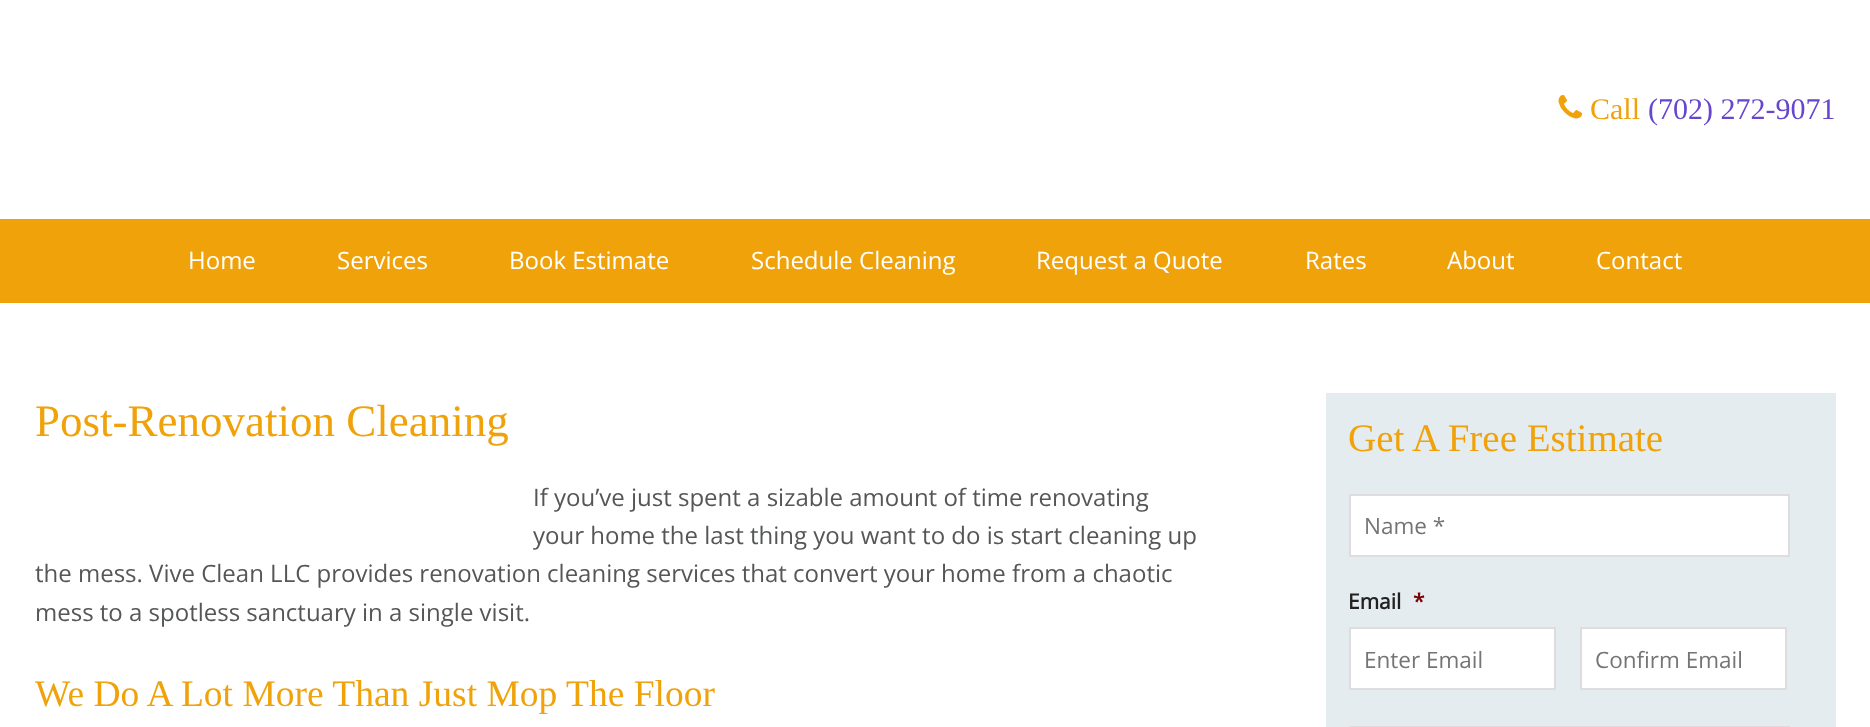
(async () => {
const canvas = document.querySelector("canvas")
canvas.width = 1870
canvas.height = 727
const c = canvas.getContext("2d")
c.miterLimit = 4
c.fontKerning = "normal"
function T(s,x,y){c.fillText(s,x,y)}
function R(x,y,w,h){c.fillRect(x,y,w,h)}
async function I(src,x,y,w,h){const img=new Image();img.src=src;await img.decode();c.drawImage(img,x,y,w,h)}
c.fillStyle="#fff"
R(0,0,1870,727)
await I("1.png",1558,94,25,25)
c.font="30px Liberation Serif"
c.fillStyle="#f0a20a"
T("Call",1590,119)
c.fillStyle="#6645cf"
T("(702) 272-9071",1648,119)
c.fillStyle="#f0a20a"
R(0,219,1870,84)
c.font="24px Open Sans"
c.fillStyle="#fff"
T("Home",188,269)
T("Services",337,269)
T("Book Estimate",509,269)
T("Schedule Cleaning",751,269)
T("Request a Quote",1036,269)
T("Rates",1305,269)
T("About",1447,269)
T("Contact",1596,269)
c.font="45px Liberation Serif"
c.fillStyle="#f0a20a"
T("Post-Renovation Cleaning",35,436)
c.font="24px Open Sans"
c.fillStyle="#555656"
T("If you’ve just spent a sizable amount of time renovating",533,506)
T("your home the last thing you want to do is start cleaning up",533,544)
T("the mess. Vive Clean LLC provides renovation cleaning services that convert your home from a chaotic",35,582)
T("mess to a spotless sanctuary in a single visit.",35,621)
c.font="37.5px Liberation Serif"
c.fillStyle="#f0a20a"
T("We Do A Lot More Than Just Mop The Floor",35,706)
c.fillStyle="#e5ecf0"
R(1326,393,510,334)
c.font="39px Liberation Serif"
c.fillStyle="#f0a20a"
T("Get A Free Estimate",1348,451)
c.fillStyle="#fff"
c.beginPath()
c.rect(1350,495,439,61)
c.fill()
c.strokeStyle="#ddd"
c.lineWidth=2
c.stroke()
c.font="22.5px Open Sans"
c.fillStyle="#757575"
T("Name *",1364,534)
c.font="bold 21px Open Sans"
c.fillStyle="#222"
T("Email",1348,609)
c.fillStyle="#790000"
T("*",1413,609)
c.fillStyle="#fff"
c.beginPath()
c.rect(1350,628,205,61)
c.fill()
c.stroke()
c.font="22.5px Open Sans"
c.fillStyle="#757575"
T("Enter Email",1364,668)
c.fillStyle="#fff"
c.beginPath()
c.rect(1581,628,205,61)
c.fill()
c.stroke()
c.fillStyle="#757575"
T("Confirm Email",1595,668)
c.strokeRect(1350,727,439,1)
})()
